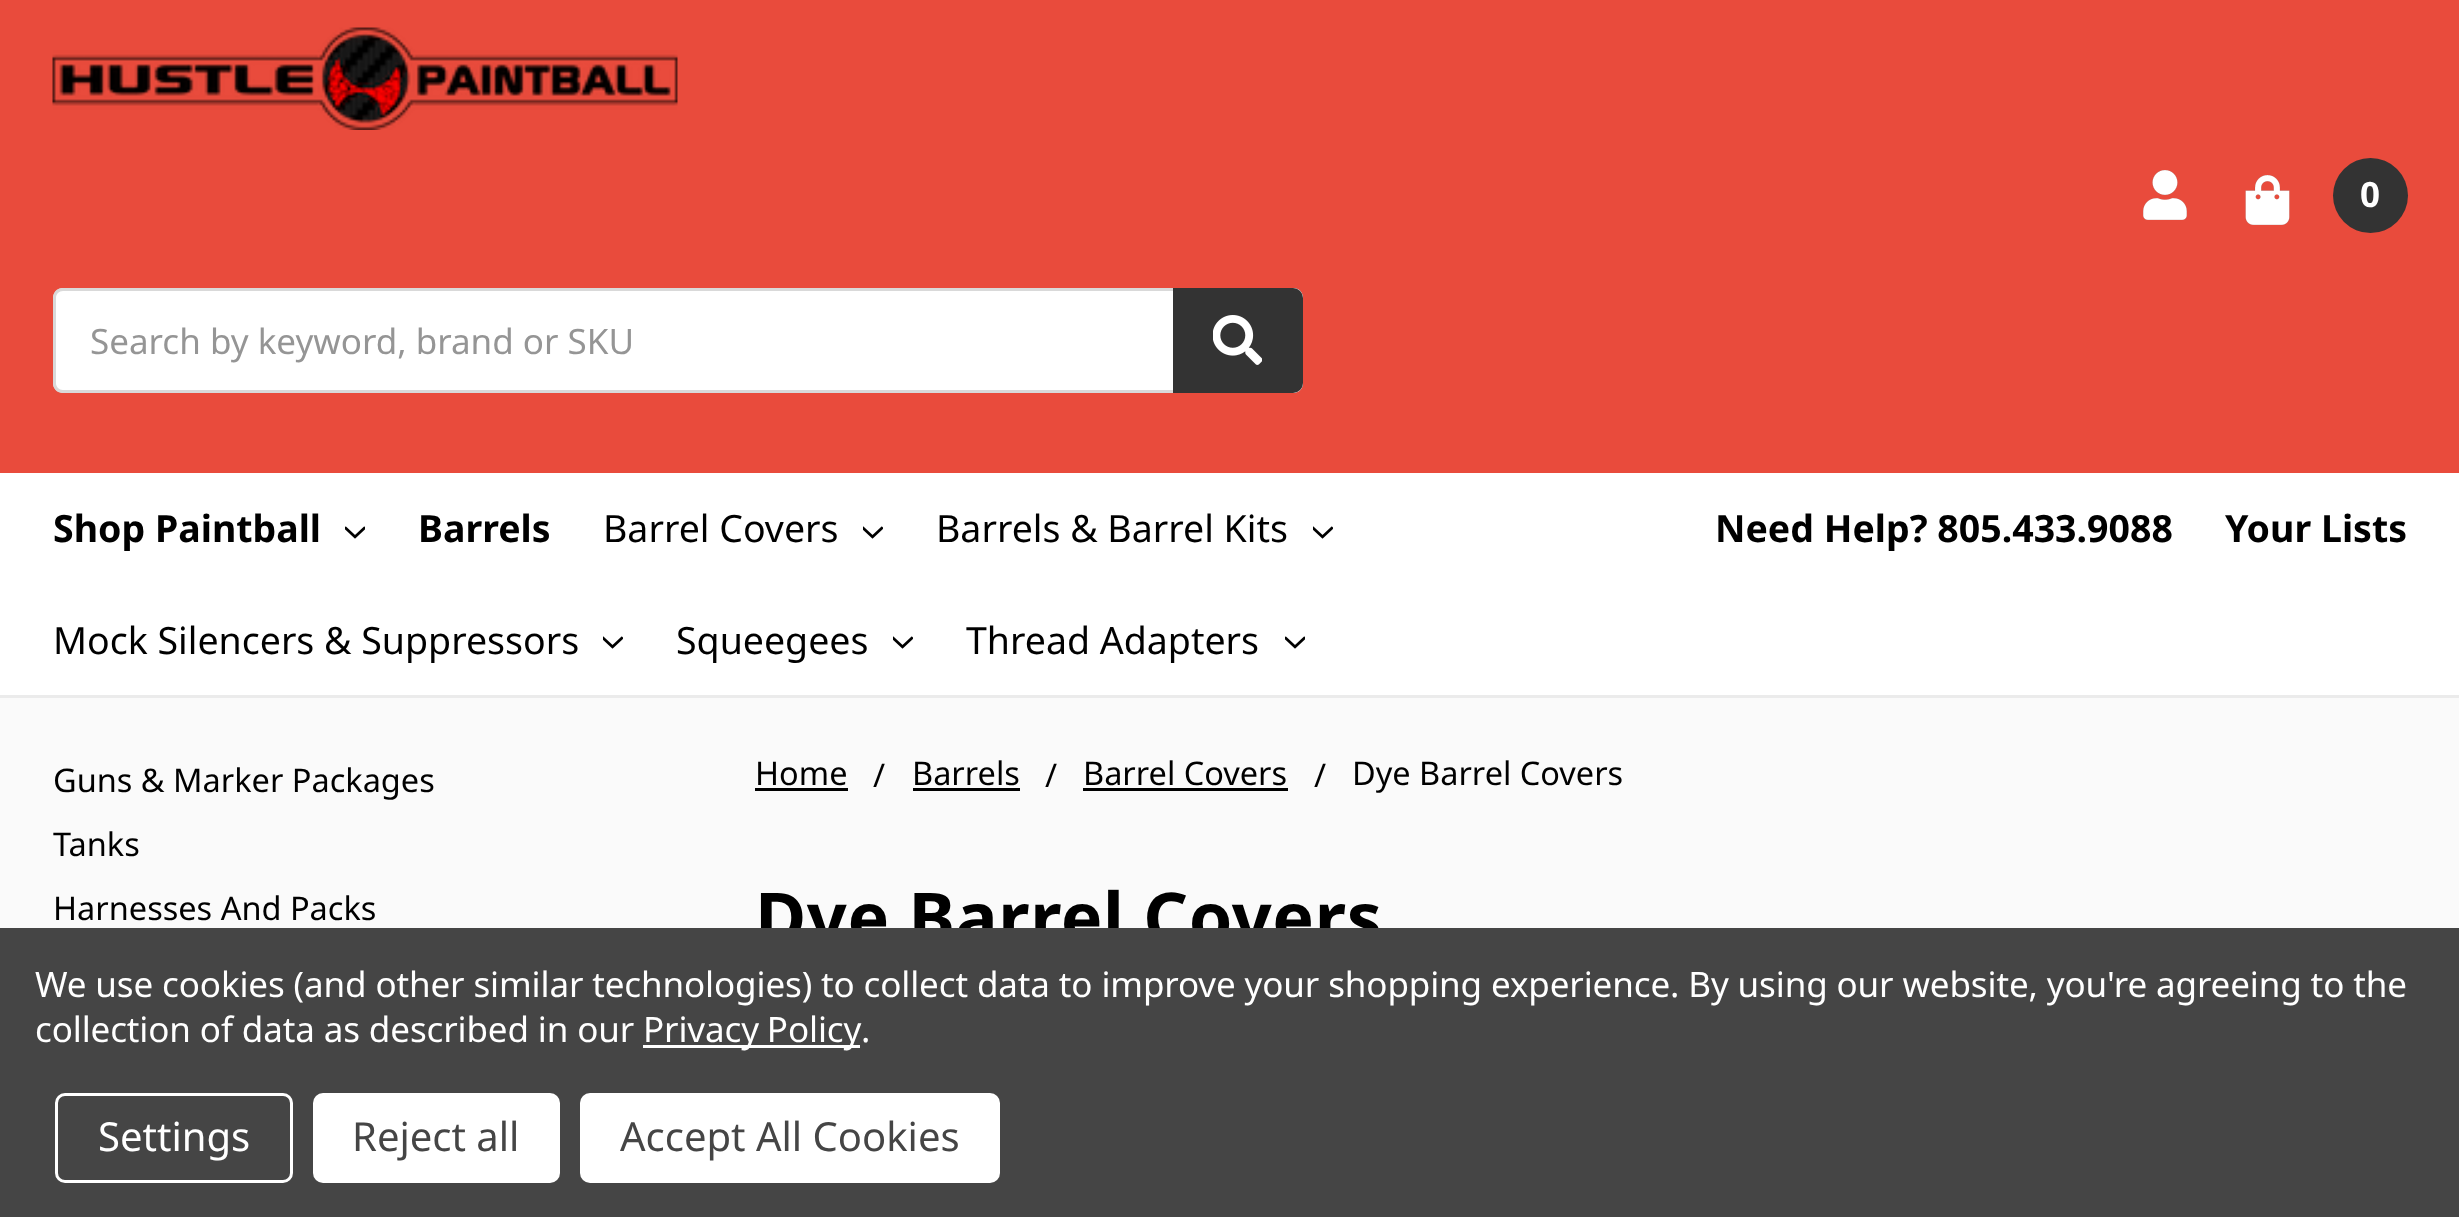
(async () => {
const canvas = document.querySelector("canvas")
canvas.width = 2459
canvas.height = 1217
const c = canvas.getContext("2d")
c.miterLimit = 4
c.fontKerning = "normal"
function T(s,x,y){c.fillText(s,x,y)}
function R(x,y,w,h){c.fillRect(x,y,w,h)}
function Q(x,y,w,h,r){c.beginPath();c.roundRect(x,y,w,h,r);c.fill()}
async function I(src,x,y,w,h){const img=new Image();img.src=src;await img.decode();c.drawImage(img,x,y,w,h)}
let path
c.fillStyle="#fafafa"
R(0,0,2459,1217)
c.fillStyle="#e94b3c"
R(0,0,2459,473)
c.fillStyle="#ebebeb"
R(0,695,2459,3)
await I("1.png",52,27,626,103)
await I("2.png",2143,170,44,50)
await I("3.png",2245,175,45,50)
c.fillStyle="#333"
c.beginPath()
c.arc(2370.5,195.5,37.5,0,7)
c.fill()
c.font="bold 35px Noto Sans"
c.fillStyle="#fff"
T("0",2360,207)
Q(53,288,1250,105,10)
c.fillStyle="#d9d9d9"
path = new Path2D("M63 288c-6 0-10 4-10 10v85c0 6 4 10 10 10h1230c6 0 10-4 10-10v-85c0-6-4-10-10-10zm0 3c-4 0-7 3-7 7v85c0 4 3 7 7 7h1237v-99z")
c.fill(path,"evenodd")
c.font="35px Noto Sans"
c.fillStyle="#959595"
T("Search by keyword, brand or SKU",90,354)
c.fillStyle="#333"
c.beginPath()
c.roundRect(1173,288,130,105,[0,10,10,0])
c.fill()
await I("4.png",1213,315,49,50)
c.fillStyle="#fff"
R(0,473,2459,222)
c.font="bold 37.5px Noto Sans"
c.fillStyle="#000"
T("Shop Paintball",53,542)
await I("5.png",345,526,20,13)
T("Barrels",418,542)
c.font="37.5px Noto Sans"
T("Barrel Covers",603,542)
await I("6.png",863,526,20,13)
T("Barrels & Barrel Kits",936,542)
await I("6.png",1313,526,20,13)
T("Mock Silencers & Suppressors",53,654)
await I("6.png",603,636,20,13)
T("Squeegees",676,654)
await I("6.png",893,636,20,13)
T("Thread Adapters",966,654)
await I("5.png",1285,636,20,13)
c.font="bold 37.5px Noto Sans"
T("Need Help? 805.433.9088",1715,542)
T("Your Lists",2225,542)
c.font="32.5px Noto Sans"
T("Guns & Marker Packages",53,792)
T("Tanks",53,856)
T("Harnesses And Packs",53,920)
T("Home",755,785)
R(755,788,93,3)
T("/",873,787)
T("Barrels",912,785)
R(913,788,107,3)
T("/",1045,787)
T("Barrel Covers",1083,785)
R(1083,788,205,3)
T("/",1314,787)
T("Dye Barrel Covers",1352,785)
c.letterSpacing="0.6px"
c.font="bold 70px Noto Sans"
T("Dye Barrel Covers",755,943)
c.fillStyle="#454545"
R(0,928,2459,289)
c.letterSpacing="-0.12px"
c.font="35px Noto Sans"
c.fillStyle="#fff"
T("We use cookies (and other similar technologies) to collect data to improve your shopping experience. By using our website, you're agreeing to the",35,997)
T("collection of data as described in our",35,1042)
R(643,1045,217,3)
c.wordSpacing="-1px"
T("Privacy Policy",643,1042)
c.wordSpacing="0px"
T(".",861,1042)
c.beginPath()
c.roundRect(56.5,1094.5,235,87,8.5)
c.strokeStyle="#fff"
c.lineWidth=3
c.stroke()
c.letterSpacing="0px"
c.font="40px Noto Sans"
T("Settings",98,1151)
Q(313,1093,247,90,10)
c.fillStyle="#454545"
T("Reject all",352,1151)
c.fillStyle="#fff"
Q(580,1093,420,90,10)
c.fillStyle="#454545"
T("Accept All Cookies",620,1151)
})()
